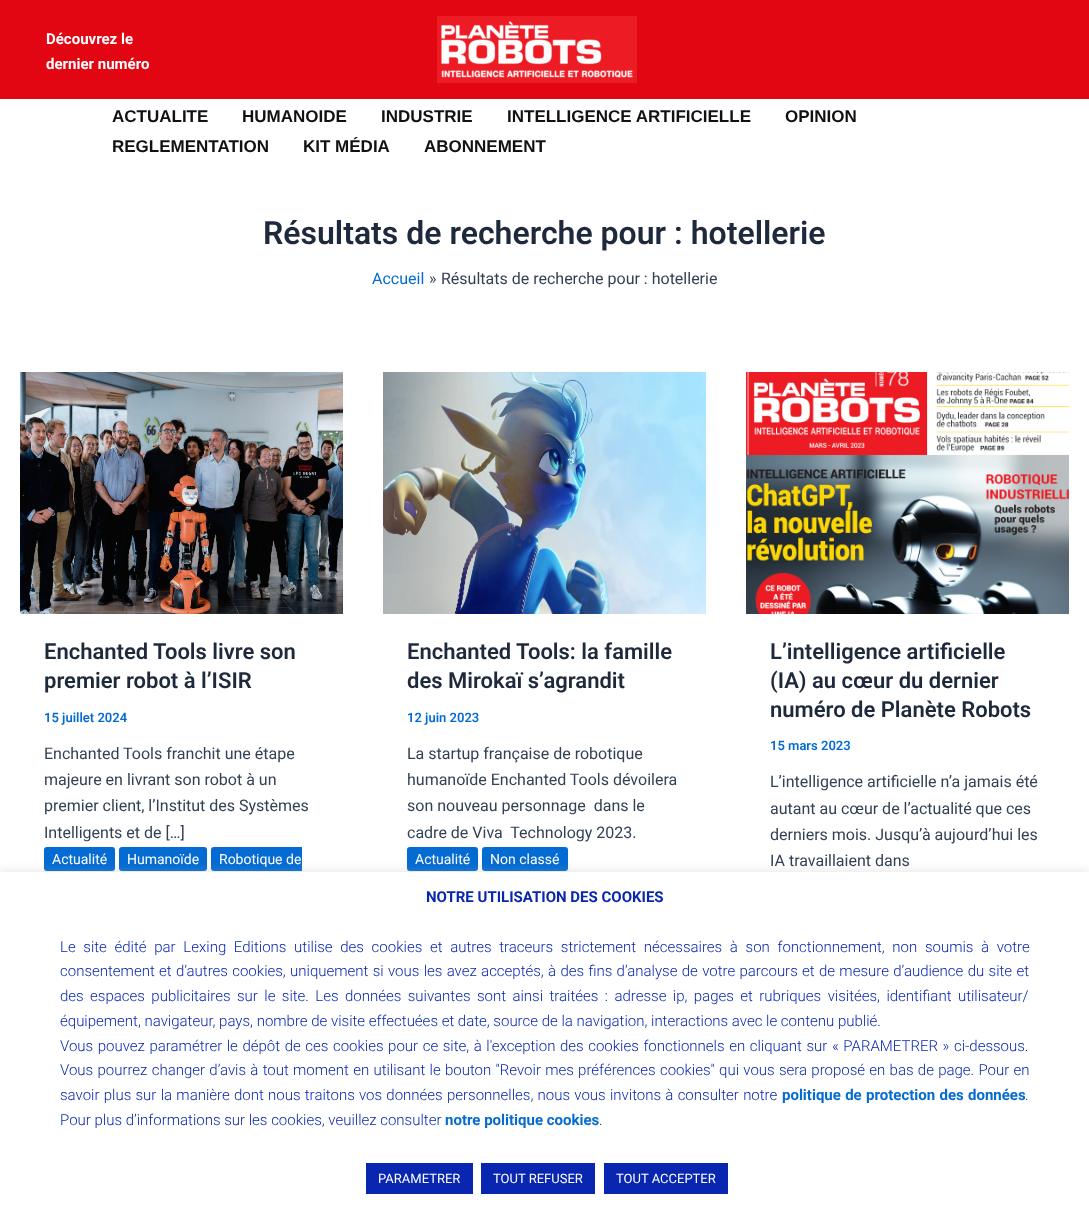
(async () => {
const canvas = document.querySelector("canvas")
canvas.width = 1089
canvas.height = 1206
const c = canvas.getContext("2d")
c.miterLimit = 4
c.fontKerning = "normal"
function T(s,x,y){c.fillText(s,x,y)}
function R(x,y,w,h){c.fillRect(x,y,w,h)}
function Q(x,y,w,h,r){c.beginPath();c.roundRect(x,y,w,h,r);c.fill()}
async function I(src,x,y,w,h){const img=new Image();img.src=src;await img.decode();c.drawImage(img,x,y,w,h)}
c.fillStyle="#fff"
R(0,0,1089,1206)
c.fillStyle="#e20613"
R(0,0,1089,99)
c.font="bold 15px Roboto"
c.fillStyle="#fff"
T("Découvrez le",46,44)
T("dernier numéro",46,69)
await I("1.png",437,16,200,67)
c.font="bold 17px Liberation Sans"
c.fillStyle="#111"
T("ACTUALITE",112,122)
T("HUMANOIDE",242,122)
T("INDUSTRIE",381,122)
T("INTELLIGENCE ARTIFICIELLE",507,122)
T("OPINION",785,122)
T("REGLEMENTATION",112,152)
T("KIT MÉDIA",303,152)
T("ABONNEMENT",424,152)
c.font="600 32px Roboto"
c.fillStyle="#1e293b"
T("Résultats de recherche pour : hotellerie",263,244)
c.font="16px Roboto"
c.fillStyle="#046bd2"
T("Accueil",372,284)
c.fillStyle="#334155"
T("»",429,284)
T("Résultats de recherche pour : hotellerie",441,284)
await I("2.png",20,372,323,242)
c.font="600 22px Roboto"
c.fillStyle="#1e293b"
T("Enchanted Tools livre son",44,659)
T("premier robot à l’ISIR",44,688)
c.font="600 13px Roboto"
c.fillStyle="#046bd2"
T("15 juillet 2024",44,722)
c.font="16px Roboto"
c.fillStyle="#334155"
T("Enchanted Tools franchit une étape",44,759)
T("majeure en livrant son robot à un",44,785)
T("premier client, l’Institut des Systèmes",44,811)
T("Intelligents et de […]",44,838)
c.fillStyle="#0000000d"
c.filter="blur(1px)"
c.beginPath()
c.roundRect(44,848,71,24,3)
c.fill()
c.filter="none"
c.fillStyle="#046bd2"
Q(44,847,71,24,3)
c.font="14px Roboto"
c.fillStyle="#fff"
T("Actualité",52,864)
c.fillStyle="#0000000d"
c.filter="blur(1px)"
c.beginPath()
c.roundRect(119,848,88,24,3)
c.fill()
c.filter="none"
c.fillStyle="#046bd2"
Q(119,847,88,24,3)
c.fillStyle="#fff"
T("Humanoïde",127,864)
c.fillStyle="#0000000d"
c.filter="blur(1px)"
c.beginPath()
c.roundRect(211,848,91,24,3)
c.fill()
c.filter="none"
c.fillStyle="#046bd2"
c.beginPath()
c.roundRect(211,847,91,24,[3,0,0,3])
c.fill()
c.fillStyle="#fff"
T("Robotique de",219,864)
await I("3.png",383,372,323,242)
c.font="600 22px Roboto"
c.fillStyle="#1e293b"
T("Enchanted Tools: la famille",407,659)
T("des Mirokaï s’agrandit",407,688)
c.font="600 13px Roboto"
c.fillStyle="#046bd2"
T("12 juin 2023",407,722)
c.font="16px Roboto"
c.fillStyle="#334155"
T("La startup française de robotique",407,759)
T("humanoïde Enchanted Tools dévoilera",407,785)
T("son nouveau personnage  dans le",407,811)
T("cadre de Viva  Technology 2023.",407,838)
c.fillStyle="#0000000d"
c.filter="blur(1px)"
c.beginPath()
c.roundRect(407,848,71,24,3)
c.fill()
c.filter="none"
c.fillStyle="#046bd2"
Q(407,847,71,24,3)
c.font="14px Roboto"
c.fillStyle="#fff"
T("Actualité",415,864)
c.fillStyle="#0000000d"
c.filter="blur(1px)"
c.beginPath()
c.roundRect(482,848,86,24,3)
c.fill()
c.filter="none"
c.fillStyle="#046bd2"
Q(482,847,86,24,3)
c.fillStyle="#fff"
T("Non classé",490,864)
await I("4.png",746,372,323,242)
c.font="600 22px Roboto"
c.fillStyle="#1e293b"
T("L’intelligence artificielle",770,659)
T("(IA) au cœur du dernier",770,688)
T("numéro de Planète Robots",770,717)
c.font="600 13px Roboto"
c.fillStyle="#046bd2"
T("15 mars 2023",770,750)
c.font="16px Roboto"
c.fillStyle="#334155"
T("L’intelligence artificielle n’a jamais été",770,787)
T("autant au cœur de l’actualité que ces",770,814)
T("derniers mois. Jusqu’à aujourd’hui les",770,840)
T("IA travaillaient dans",770,866)
c.fillStyle="#acabab4d"
c.filter="blur(5px)"
c.beginPath()
c.rect(0,871,1089,334)
c.fill()
c.filter="none"
c.fillStyle="#fff"
R(0,872,1089,334)
c.font="bold 15px Roboto"
c.fillStyle="#0826af"
T("NOTRE UTILISATION DES COOKIES",426,902)
c.wordSpacing="4px"
c.font="300 15px Roboto"
T("Le site édité par Lexing Editions utilise des cookies et autres traceurs strictement nécessaires à son fonctionnement, non soumis à votre",60,952)
c.wordSpacing="0.65px"
T("consentement et d’autres cookies, uniquement si vous les avez acceptés, à des fins d’analyse de votre parcours et de mesure d’audience du site et",60,976)
c.wordSpacing="2.75px"
T("des espaces publicitaires sur le site. Les données suivantes sont ainsi traitées : adresse ip, pages et rubriques visitées, identifiant utilisateur/",60,1001)
c.wordSpacing="0px"
T("équipement, navigateur, pays, nombre de visite effectuées et date, source de la navigation, interactions avec le contenu publié.",60,1026)
c.wordSpacing="0.9px"
T("Vous pouvez paramétrer le dépôt de ces cookies pour ce site, à l'exception des cookies fonctionnels en cliquant sur « PARAMETRER » ci-dessous.",60,1051)
c.wordSpacing="0.6px"
T("Vous pourrez changer d’avis à tout moment en utilisant le bouton \"Revoir mes préférences cookies\" qui vous sera proposé en bas de page. Pour en",60,1075)
T("savoir plus sur la manière dont nous traitons vos données personnelles, nous vous invitons à consulter notre",60,1100)
c.font="bold 15px Roboto"
c.fillStyle="#046bd2"
T("politique de protection des données",782,1100)
c.wordSpacing="0px"
c.font="300 15px Roboto"
c.fillStyle="#0826af"
T(".",1025,1100)
T("Pour plus d’informations sur les cookies, veuillez consulter",60,1125)
c.font="bold 15px Roboto"
c.fillStyle="#046bd2"
T("notre politique cookies",445,1125)
c.font="300 15px Roboto"
c.fillStyle="#0826af"
T(".",599,1125)
R(366,1163,107,31)
c.font="13px Roboto"
c.fillStyle="#fff"
T("PARAMETRER",378,1183)
c.fillStyle="#0826af"
R(481,1163,114,31)
c.fillStyle="#fff"
T("TOUT REFUSER",493,1183)
c.fillStyle="#0826af"
R(604,1163,124,31)
c.fillStyle="#fff"
T("TOUT ACCEPTER",616,1183)
})()
